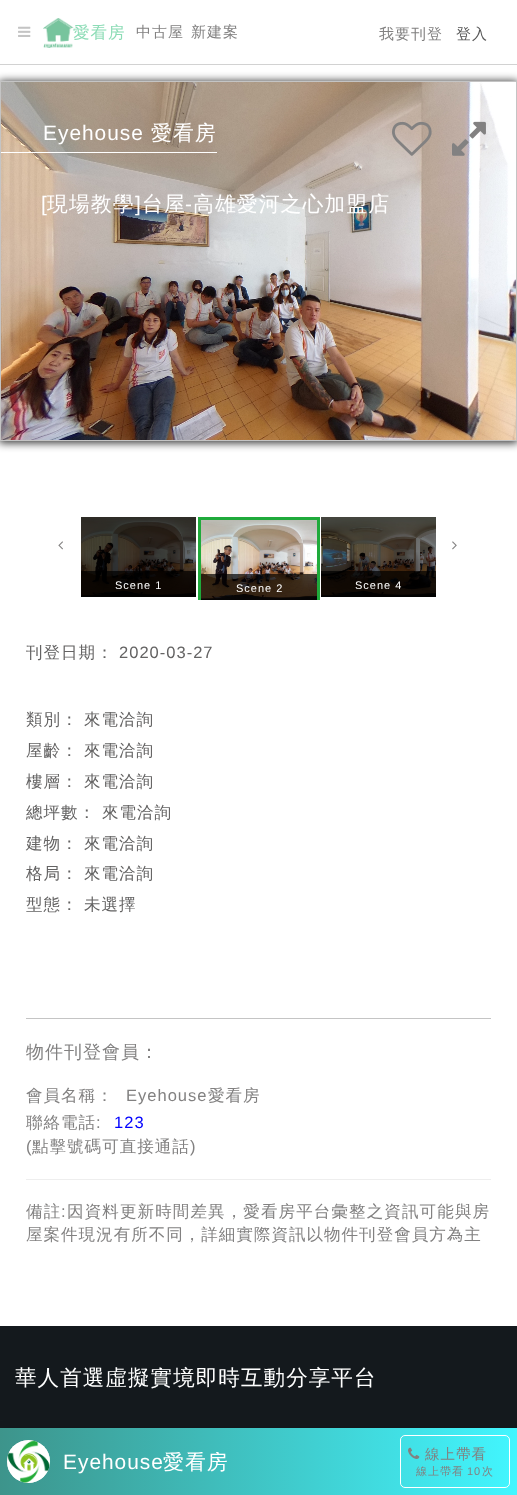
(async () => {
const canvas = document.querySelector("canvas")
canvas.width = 517
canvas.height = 1495
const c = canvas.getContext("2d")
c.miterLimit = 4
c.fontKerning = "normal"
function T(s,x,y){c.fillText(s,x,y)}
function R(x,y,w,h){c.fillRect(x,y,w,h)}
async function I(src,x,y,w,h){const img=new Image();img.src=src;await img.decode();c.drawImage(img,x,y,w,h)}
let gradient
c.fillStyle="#fff"
R(0,0,517,1495)
c.fillStyle="#d2d2d2"
R(0,64,517,1)
await I("1.png",18,26,13,11)
await I("2.png",43,18,31,30)
c.letterSpacing="1px"
c.font="500 16.55px WenQuanYi Zen Hei"
c.fillStyle="#8cdcb6"
T("愛看房",73,38)
c.font="500 15px WenQuanYi Zen Hei"
c.fillStyle="#828181"
T("中古屋",136,37)
T("新建案",191,37)
T("我要刊登",379,39)
c.fillStyle="#555"
T("登入",456,39)
c.fillStyle="#000000cc"
c.filter="blur(4px)"
c.beginPath()
c.rect(-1,81,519,362)
c.fill()
c.filter="none"
c.strokeStyle="#c4c4c4"
c.strokeRect(.5,81.5,516,359)
await I("3.png",1,82,515,358)
c.fillStyle="#fff"
R(1,152,216,1)
c.font="20.9px Liberation Sans"
T("Eyehouse",43,140)
c.font="500 20.9px WenQuanYi Zen Hei"
T("愛看房",151,140)
c.font="20.9px Liberation Sans"
T("[",41,211)
c.font="500 20.9px WenQuanYi Zen Hei"
T("現場教學",47,211)
c.font="20.9px Liberation Sans"
T("]",135,211)
c.font="500 20.9px WenQuanYi Zen Hei"
T("台屋",142,211)
c.font="20.9px Liberation Sans"
T("-",185,211)
c.font="500 20.9px WenQuanYi Zen Hei"
T("高雄愛河之心加盟店",193,211)
await I("4.png",392,121,40,35)
await I("5.png",452,121,34,35)
await I("6.png",58,541,5,9)
await I("7.png",452,541,5,9)
await I("8.png",81,517,115,80)
c.fillStyle="#000000b3"
R(81,571,115,25)
c.font="11px Liberation Sans"
c.fillStyle="#fff"
T("Scene 1",115,589)
c.save()
c.beginPath()
c.rect(78,517,360,83)
c.clip()
c.strokeStyle="#1faa3b"
c.lineWidth=3
c.strokeRect(199.5,518.5,119,83)
c.restore()
await I("9.png",201,520,116,80)
c.fillStyle="#000000b3"
R(201,574,116,26)
c.fillStyle="#fff"
T("Scene 2",236,592)
await I("10.png",321,517,115,80)
c.fillStyle="#000000b3"
R(321,571,115,26)
c.fillStyle="#fff"
T("Scene 4",355,589)
c.font="500 16.55px WenQuanYi Zen Hei"
c.fillStyle="#646363"
T("刊登日期：",26,658)
c.font="16.55px Liberation Sans"
T("2020-03-27",119,658)
c.font="500 16.55px WenQuanYi Zen Hei"
T("類別：",26,725)
T("來電洽詢",84,725)
T("屋齡：",26,756)
T("來電洽詢",84,756)
T("樓層：",26,787)
T("來電洽詢",84,787)
T("總坪數：",26,818)
T("來電洽詢",102,818)
T("建物：",26,849)
T("來電洽詢",84,849)
T("格局：",26,879)
T("來電洽詢",84,879)
T("型態：",26,910)
T("未選擇",84,910)
c.fillStyle="#c4c4c4"
R(26,1018,465,1)
c.font="500 18px WenQuanYi Zen Hei"
c.fillStyle="#828181"
T("物件刊登會員：",26,1058)
c.font="500 16.55px WenQuanYi Zen Hei"
T("會員名稱：",26,1101)
c.font="16.55px Liberation Sans"
T("Eyehouse",126,1101)
c.font="500 16.55px WenQuanYi Zen Hei"
T("愛看房",208,1101)
T("聯絡電話",26,1128)
c.font="16.55px Liberation Sans"
c.fillStyle="#00f"
T("123",114,1128)
c.fillStyle="#828181"
T("(",26,1152)
c.font="500 16.55px WenQuanYi Zen Hei"
T("點擊號碼可直接通話",32,1152)
c.font="16.55px Liberation Sans"
T(")",190,1152)
T(":",96,1128)
c.fillStyle="#eee"
R(26,1179,465,1)
c.letterSpacing="1.1px"
c.font="500 16.55px WenQuanYi Zen Hei"
c.fillStyle="#828181"
T("備註",26,1217)
c.font="16.55px Liberation Sans"
T(":",61,1217)
c.font="500 16.55px WenQuanYi Zen Hei"
T("因資料更新時間差異，愛看房平台彙整之資訊可能與房",67,1217)
c.letterSpacing="1px"
T("屋案件現況有所不同，詳細實際資訊以物件刊登會員方為主",26,1240)
c.fillStyle="#14191d"
R(0,1326,517,102)
c.fillStyle="#00000033"
c.filter="blur(5px)"
c.beginPath()
c.rect(0,1430,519,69)
c.fill()
c.filter="none"
gradient = c.createLinearGradient(0,1462,517,1462)
gradient.addColorStop(0,"#3d948b")
gradient.addColorStop(1,"#42f6ff")
c.fillStyle = gradient
R(0,1428,517,67)
c.fillStyle="#fcf8ef"
c.beginPath()
c.arc(28.5,1461.5,21.5,0,7)
c.fill()
await I("11.png",7,1440,43,43)
c.font="20.9px Liberation Sans"
c.fillStyle="#fff"
T("Eyehouse",63,1469)
c.save()
c.beginPath()
c.rect(63,1452,332,22)
c.clip()
c.font="500 20.9px WenQuanYi Zen Hei"
T("愛看房",163,1469)
c.restore()
c.beginPath()
c.roundRect(400.5,1435.5,109,52,4.5)
c.strokeStyle="#fff"
c.stroke()
await I("12.png",408,1447,12,12)
c.font="500 14.5px WenQuanYi Zen Hei"
c.fillStyle="#828181"
T("線上帶看",425,1459)
c.font="500 11px WenQuanYi Zen Hei"
T("線上帶看",416,1475)
c.font="11px Liberation Sans"
T("10",467,1475)
c.font="500 11px WenQuanYi Zen Hei"
T("次",482,1475)
c.font="500 21.6px WenQuanYi Zen Hei"
c.fillStyle="#fff"
T("華人首選虛擬實境即時互動分享平台",15,1385)
})()
